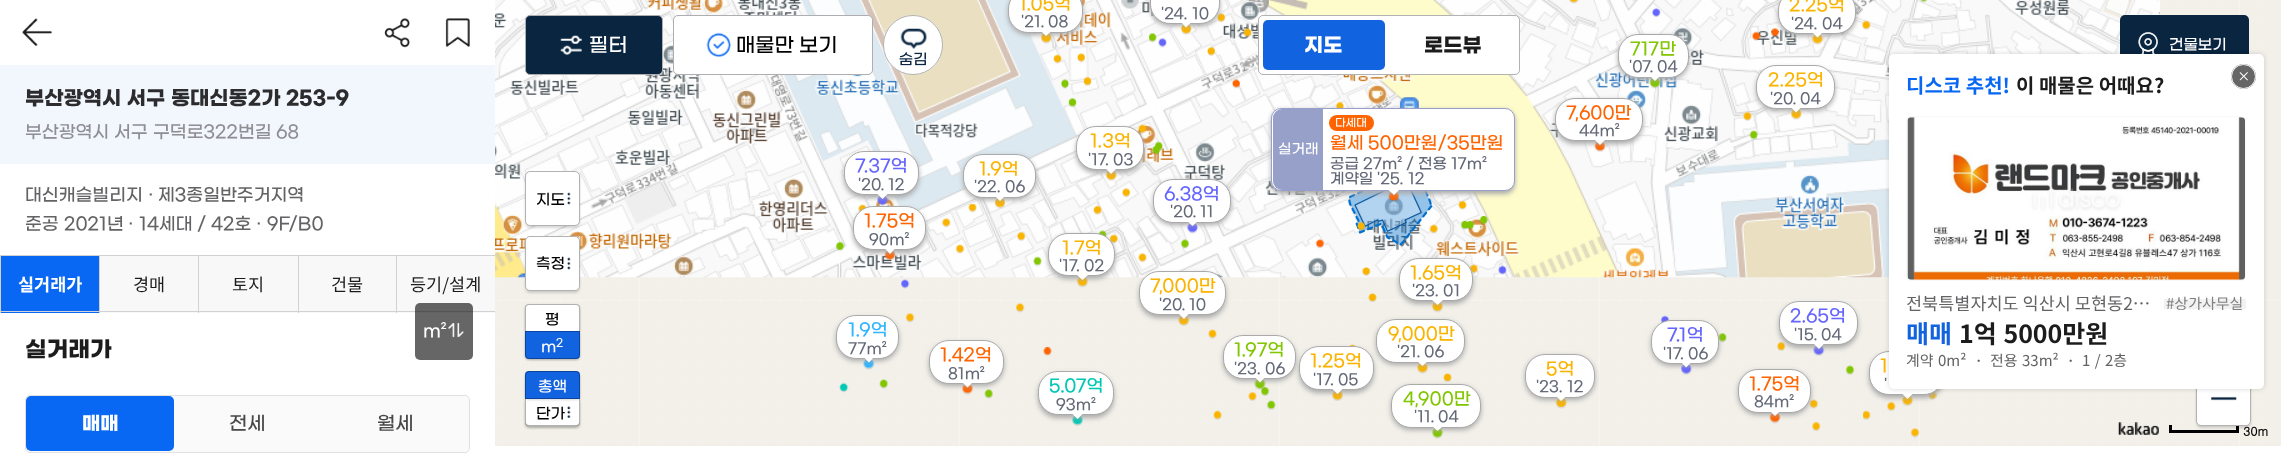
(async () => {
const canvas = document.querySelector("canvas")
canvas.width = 2281
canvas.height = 465
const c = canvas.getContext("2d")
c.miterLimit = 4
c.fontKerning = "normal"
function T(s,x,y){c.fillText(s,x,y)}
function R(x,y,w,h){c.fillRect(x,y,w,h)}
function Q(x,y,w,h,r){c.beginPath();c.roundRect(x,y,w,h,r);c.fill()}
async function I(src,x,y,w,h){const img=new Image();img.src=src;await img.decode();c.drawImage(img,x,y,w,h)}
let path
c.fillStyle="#fff"
R(0,0,2281,465)
await I("1.png",22,18,30,28)
await I("2.png",384,18,26,30)
await I("3.png",445,18,25,29)
c.fillStyle="#f2f7fe"
R(0,65,495,99)
c.font="bold 20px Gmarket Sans"
c.fillStyle="#2c2c2e"
T("부산광역시 서구 동대신동2가 253-9",25,104)
c.font="500 17.5px Gmarket Sans"
c.fillStyle="#8e8e93"
T("부산광역시",25,137)
T("서구",114,137)
T("구덕로322번길",153,137)
T("68",276,137)
c.fillStyle="#636366"
T("대신캐슬빌리지",25,200)
T("·",148,200)
T("제3종일반주거지역",158,200)
T("준공",25,229)
T("2021년",64,229)
T("·",128,229)
T("14세대",139,229)
T("/",197,229)
T("42호",211,229)
T("·",256,229)
T("9F/B0",267,229)
c.fillStyle="#f8f8f8"
R(100,256,395,57)
c.fillStyle="#0868f4"
R(1,256,98,57)
c.fillStyle="#d1d1d6"
R(0,255,495,1)
R(0,311,495,1)
R(0,255,1,58)
c.font="bold 17.5px Noto Sans KR"
c.fillStyle="#fff"
T("실거래가",18,291)
c.fillStyle="#d1d1d6"
R(99,255,1,58)
c.font="17.5px Noto Sans KR"
c.fillStyle="#1c1c1c"
T("경매",133,291)
c.fillStyle="#d1d1d6"
R(198,255,1,58)
c.fillStyle="#1c1c1c"
T("토지",232,291)
c.fillStyle="#d1d1d6"
R(298,255,1,58)
c.fillStyle="#1c1c1c"
T("건물",331,291)
c.fillStyle="#d1d1d6"
R(396,255,1,58)
c.fillStyle="#1c1c1c"
T("등기/설계",410,291)
c.font="bold 22.5px Gmarket Sans"
T("실거래가",25,356)
c.fillStyle="#fafafa"
c.beginPath()
c.roundRect(25.5,395.5,444,57,4.5)
c.fill()
c.strokeStyle="#e1e1e1"
c.stroke()
c.fillStyle="#0868f4"
Q(26,396,148,55,5)
c.font="bold 19px Gmarket Sans"
c.fillStyle="#fff"
T("매매",82,429)
c.font="500 19px Gmarket Sans"
c.fillStyle="#48484a"
T("전세",229,429)
T("월세",377,429)
c.fillStyle="#00000099"
Q(415,303,58,57,5)
c.font="500 17.5px Gmarket Sans"
c.fillStyle="#fff"
T("m²",423,336)
await I("4.png",448,323,16,15)
await I("5.png",495,0,1786,446)
await I("6.png",495,0,65,278)
await I("7.png",560,0,320,278)
await I("8.png",880,0,320,278)
await I("9.png",1200,0,320,278)
await I("10.png",1520,0,320,278)
await I("11.png",1840,0,320,278)
await I("12.png",1041,33,11,11)
c.fillStyle="#aaa"
c.filter="blur(2.5px)"
c.beginPath()
c.roundRect(1008,-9,75,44,20)
c.fill()
c.filter="none"
c.fillStyle="#fff"
c.beginPath()
c.roundRect(1008.5,-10.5,74,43,19.5)
c.fill()
c.strokeStyle="#aaa"
c.stroke()
c.fillStyle="#fab400"
T("1.05억",1019,9)
c.font="500 15px Gmarket Sans"
c.fillStyle="#646978"
T("'21.",1021,26)
T("08",1048,26)
c.fillStyle="#fff"
path = new Path2D("M1040 30h12.5l-6.5 6z")
c.fill(path)
await I("13.png",1569,0,10,4)
await I("14.png",1811,34,12,11)
await I("19.png",1861,20,10,10)
await I("26.png",1771,28,9,9)
c.fillStyle="#aaa"
c.filter="blur(2.5px)"
c.beginPath()
c.roundRect(1778,-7,78,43,20)
c.fill()
c.filter="none"
c.fillStyle="#fff"
c.beginPath()
c.roundRect(1778.5,-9.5,77,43,19.5)
c.fill()
c.stroke()
c.font="500 17.5px Gmarket Sans"
c.fillStyle="#fab400"
T("2.25억",1789,10)
c.font="500 15px Gmarket Sans"
c.fillStyle="#646978"
T("'24.",1791,28)
T("04",1822,28)
c.fillStyle="#fff"
path = new Path2D("M1811 31h13l-6.5 6.5z")
c.fill(path)
await I("15.png",1920,0,8,3)
await I("16.png",1181,24,11,11)
await I("17.png",1217,13,8,10)
await I("20.png",1149,33,8,10)
c.fillStyle="#aaa"
c.filter="blur(2.5px)"
c.beginPath()
c.roundRect(1150,-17,70,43,20)
c.fill()
c.filter="none"
c.fillStyle="#fff"
c.beginPath()
c.roundRect(1150.5,-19.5,69,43,19.5)
c.fill()
c.stroke()
c.fillStyle="#646978"
T("'24.",1161,18)
T("10",1192,18)
c.fillStyle="#fff"
path = new Path2D("M1180 21h12.5l-6.5 6.5z")
c.fill(path)
await I("18.png",1651,8,10,9)
await I("21.png",1158,38,9,10)
await I("22.png",1207,46,8,10)
await I("23.png",1243,28,9,10)
await I("24.png",1649,78,12,11)
c.fillStyle="#aaa"
c.filter="blur(2.5px)"
c.beginPath()
c.roundRect(1618,36,71,44,20)
c.fill()
c.filter="none"
c.fillStyle="#fff"
c.beginPath()
c.roundRect(1618.5,34.5,70,43,19.5)
c.fill()
c.stroke()
c.font="500 17.5px Gmarket Sans"
c.fillStyle="#81c600"
T("717만",1630,54)
c.font="500 15px Gmarket Sans"
c.fillStyle="#646978"
T("'07.",1629,71)
T("04",1657,71)
c.fillStyle="#fff"
path = new Path2D("M1649 75h12l-6 6z")
c.fill(path)
await I("25.png",1751,31,10,10)
await I("27.png",1053,54,9,10)
await I("28.png",1077,53,8,10)
await I("29.png",1061,79,8,10)
await I("30.png",1083,76,9,10)
await I("31.png",1232,79,8,10)
await I("32.png",1791,109,11,11)
await I("36.png",1743,111,9,10)
c.fillStyle="#aaa"
c.filter="blur(2.5px)"
c.beginPath()
c.roundRect(1756,68,79,43,20)
c.fill()
c.filter="none"
c.fillStyle="#fff"
c.beginPath()
c.roundRect(1756.5,65.5,78,43,19.5)
c.fill()
c.stroke()
c.font="500 17.5px Gmarket Sans"
c.fillStyle="#fab400"
T("2.25억",1768,85)
c.font="500 15px Gmarket Sans"
c.fillStyle="#646978"
T("'20.",1770,103)
T("04",1800,103)
c.fillStyle="#fff"
path = new Path2D("M1790 106h12.5l-6.5 6.5z")
c.fill(path)
await I("33.png",1068,98,9,10)
await I("34.png",1336,101,8,7)
await I("35.png",1594,141,12,11)
c.fillStyle="#aaa"
c.filter="blur(2.5px)"
c.beginPath()
c.roundRect(1555,100,88,44,20)
c.fill()
c.filter="none"
c.fillStyle="#fff"
c.beginPath()
c.roundRect(1555.5,98.5,87,42,19.5)
c.fill()
c.stroke()
c.font="500 17.5px Gmarket Sans"
c.fillStyle="#ff6400"
T("7,600만",1566,118)
c.font="500 15px Gmarket Sans"
c.fillStyle="#646978"
T("44m²",1579,135)
c.fillStyle="#fff"
path = new Path2D("M1594 139h12l-6 6z")
c.fill(path)
c.fillStyle="#aaa"
c.filter="blur(2.5px)"
c.beginPath()
c.roundRect(1891,106,70,44,20)
c.fill()
c.filter="none"
await I("37.png",1138,124,9,10)
await I("113.png",1348,191,85,55)
await I("38.png",1388,191,11,11)
await I("51.png",1458,201,9,9)
c.filter="blur(2.5px)"
c.beginPath()
c.roundRect(1271,110,244,84,10)
c.fill()
c.filter="none"
c.fillStyle="#fff"
c.beginPath()
c.roundRect(1271.5,108.5,243,82,9.5)
c.fill()
c.strokeStyle="#96a0c8"
c.stroke()
c.fillStyle="#96a0c8"
c.beginPath()
c.roundRect(1273,109,50,81,[9,0,0,9])
c.fill()
c.font="500 14px Gmarket Sans"
c.fillStyle="#fff"
T("실거래",1278,153)
c.fillStyle="#ff6400"
Q(1329,115,45,16,8)
c.font="500 11px Gmarket Sans"
c.fillStyle="#fff"
T("다세대",1335,126)
c.font="500 17.5px Gmarket Sans"
c.fillStyle="#ff6400"
T("월세",1330,148)
T("500만원/35만원",1368,148)
c.font="500 15px Gmarket Sans"
c.fillStyle="#646978"
T("공급",1330,168)
T("27m²",1363,168)
T("/",1406,168)
T("전용",1418,168)
T("17m²",1451,168)
T("계약일",1330,183)
T("'25.",1377,183)
T("12",1408,183)
c.fillStyle="#fff"
path = new Path2D("M1387.5 189h12.5l-6 6z")
c.fill(path)
await I("39.png",1106,170,11,11)
await I("40.png",1155,141,8,11)
await I("42.png",1152,146,9,9)
await I("45.png",1078,158,4,6)
c.fillStyle="#aaa"
c.filter="blur(2.5px)"
c.beginPath()
c.roundRect(1076,129,68,44,20)
c.fill()
c.filter="none"
c.fillStyle="#fff"
c.beginPath()
c.roundRect(1076.5,126.5,67,43,19.5)
c.fill()
c.strokeStyle="#aaa"
c.stroke()
c.font="500 17.5px Gmarket Sans"
c.fillStyle="#fab400"
T("1.3억",1090,146)
c.font="500 15px Gmarket Sans"
c.fillStyle="#646978"
T("'17.",1088,164)
T("03",1113,164)
c.fillStyle="#fff"
path = new Path2D("M1105 167.5h12.5l-6.5 6.5z")
c.fill(path)
await I("41.png",1749,130,9,10)
await I("48.png",858,204,9,8)
await I("52.png",884,250,12,11)
await I("62.png",836,241,9,10)
await I("63.png",919,243,2,2)
c.fillStyle="#aaa"
c.filter="blur(2.5px)"
c.beginPath()
c.roundRect(853,209,73,44,20)
c.fill()
c.filter="none"
await I("43.png",877,195,12,11)
c.fillStyle="#fff"
c.beginPath()
c.roundRect(853.5,206.5,72,43,19.5)
c.fill()
c.stroke()
c.fillStyle="#aaa"
c.filter="blur(2.5px)"
c.beginPath()
c.roundRect(844,154,75,44,20)
c.fill()
c.filter="none"
c.fillStyle="#fff"
c.beginPath()
c.roundRect(844.5,151.5,74,43,19.5)
c.fill()
c.stroke()
c.font="500 17.5px Gmarket Sans"
c.fillStyle="#6464ff"
T("7.37억",855,171)
c.font="500 15px Gmarket Sans"
c.fillStyle="#646978"
T("'20.",858,189)
T("12",888,189)
c.fillStyle="#fff"
path = new Path2D("M876 192.5h13l-6.5 6.5z")
c.fill(path)
await I("44.png",995,198,10,11)
await I("49.png",968,204,9,9)
c.fillStyle="#aaa"
c.filter="blur(2.5px)"
c.beginPath()
c.roundRect(963,156,73,44,20)
c.fill()
c.filter="none"
c.fillStyle="#fff"
c.beginPath()
c.roundRect(963.5,154.5,72,43,19.5)
c.fill()
c.stroke()
c.font="500 17.5px Gmarket Sans"
c.fillStyle="#fab400"
T("1.9억",979,174)
c.font="500 15px Gmarket Sans"
c.fillStyle="#646978"
T("'22.",974,191)
T("06",1005,191)
c.fillStyle="#fff"
path = new Path2D("M994 195h12l-6 6z")
c.fill(path)
await I("46.png",1122,188,8,10)
await I("47.png",1187,223,11,11)
c.fillStyle="#aaa"
c.filter="blur(2.5px)"
c.beginPath()
c.roundRect(1153,181,78,44,20)
c.fill()
c.filter="none"
c.fillStyle="#fff"
c.beginPath()
c.roundRect(1153.5,179.5,77,43,19.5)
c.fill()
c.stroke()
c.font="500 17.5px Gmarket Sans"
c.fillStyle="#6464ff"
T("6.38억",1164,199)
c.font="500 15px Gmarket Sans"
c.fillStyle="#646978"
T("'20.",1170,216)
T("11",1200,216)
c.fillStyle="#fff"
path = new Path2D("M1186 220h13l-6.5 6z")
c.fill(path)
await I("50.png",1093,205,9,10)
c.font="500 17.5px Gmarket Sans"
c.fillStyle="#ff6400"
T("1.75억",864,226)
c.font="500 15px Gmarket Sans"
c.fillStyle="#646978"
T("90m²",869,244)
c.fillStyle="#fff"
path = new Path2D("M884 247.5h12l-6 6.5z")
c.fill(path)
await I("53.png",941,218,10,10)
await I("54.png",1017,231,8,10)
await I("55.png",1098,230,9,7)
await I("56.png",1110,234,8,10)
await I("57.png",1357,221,8,10)
await I("58.png",1429,224,9,10)
await I("59.png",1460,221,9,9)
await I("60.png",1466,221,9,9)
await I("61.png",1479,216,9,9)
await I("64.png",956,244,9,10)
await I("65.png",1077,276,12,12)
await I("68.png",1033,256,9,11)
c.fillStyle="#aaa"
c.filter="blur(2.5px)"
c.beginPath()
c.roundRect(1048,235,67,44,20)
c.fill()
c.filter="none"
c.fillStyle="#fff"
c.beginPath()
c.roundRect(1048.5,233.5,66,42,19.5)
c.fill()
c.stroke()
c.font="500 17.5px Gmarket Sans"
c.fillStyle="#fab400"
T("1.7억",1062,253)
c.font="500 15px Gmarket Sans"
c.fillStyle="#646978"
T("'17.",1059,270)
T("02",1084,270)
c.fillStyle="#fff"
path = new Path2D("M1076 274h13l-6.5 6z")
c.fill(path)
await I("66.png",1180,239,9,10)
await I("67.png",1315,239,9,10)
await I("69.png",1138,252,9,11)
await I("70.png",1361,267,10,9)
await I("71.png",1432,301,12,12)
await I("72.png",1469,264,10,10)
c.fillStyle="#aaa"
c.filter="blur(2.5px)"
c.beginPath()
c.roundRect(1399,260,74,44,20)
c.fill()
c.filter="none"
c.fillStyle="#fff"
c.beginPath()
c.roundRect(1399.5,258.5,73,42,19.5)
c.fill()
c.stroke()
c.font="500 17.5px Gmarket Sans"
c.fillStyle="#fab400"
T("1.65억",1410,278)
c.font="500 15px Gmarket Sans"
c.fillStyle="#646978"
T("'23.",1412,295)
T("01",1443,295)
c.fillStyle="#fff"
path = new Path2D("M1431 299h13l-6.5 6z")
c.fill(path)
await I("73.png",1498,265,9,10)
await I("74.png",901,279,9,10)
await I("75.png",1178,315,12,11)
c.fillStyle="#aaa"
c.filter="blur(2.5px)"
c.beginPath()
c.roundRect(1139,274,87,44,20)
c.fill()
c.filter="none"
c.fillStyle="#fff"
c.beginPath()
c.roundRect(1139.5,271.5,86,43,19.5)
c.fill()
c.stroke()
c.font="500 17.5px Gmarket Sans"
c.fillStyle="#fab400"
T("7,000만",1150,291)
c.font="500 15px Gmarket Sans"
c.fillStyle="#646978"
T("'20.",1159,309)
T("10",1189,309)
c.fillStyle="#fff"
path = new Path2D("M1177.5 312.5h12.5l-6 6.5z")
c.fill(path)
await I("76.png",1368,293,9,9)
await I("77.png",906,312,9,11)
await I("78.png",1016,302,9,11)
await I("79.png",1661,315,8,8)
await I("80.png",1813,345,12,11)
await I("88.png",1777,341,9,10)
c.fillStyle="#aaa"
c.filter="blur(2.5px)"
c.beginPath()
c.roundRect(1779,304,79,44,20)
c.fill()
c.filter="none"
c.fillStyle="#fff"
c.beginPath()
c.roundRect(1779.5,301.5,78,43,19.5)
c.fill()
c.stroke()
c.font="500 17.5px Gmarket Sans"
c.fillStyle="#6464ff"
T("2.65억",1790,321)
c.font="500 15px Gmarket Sans"
c.fillStyle="#646978"
T("'15.",1794,339)
T("04",1821,339)
c.fillStyle="#fff"
path = new Path2D("M1812.5 342.5h12.5l-6 6.5z")
c.fill(path)
await I("81.png",863,359,12,11)
c.fillStyle="#aaa"
c.filter="blur(2.5px)"
c.beginPath()
c.roundRect(836,318,63,43,20)
c.fill()
c.filter="none"
c.fillStyle="#fff"
c.beginPath()
c.roundRect(836.5,315.5,62,43,19.5)
c.fill()
c.stroke()
c.font="500 17.5px Gmarket Sans"
c.fillStyle="#32b4ff"
T("1.9억",848,335)
c.font="500 15px Gmarket Sans"
c.fillStyle="#646978"
T("77m²",848,353)
c.fillStyle="#fff"
path = new Path2D("M862.5 356h12.5l-6 6.5z")
c.fill(path)
await I("82.png",1208,329,9,10)
await I("83.png",1417,363,11,11)
await I("101.png",1443,373,9,9)
c.fillStyle="#aaa"
c.filter="blur(2.5px)"
c.beginPath()
c.roundRect(1376,321,89,44,20)
c.fill()
c.filter="none"
c.fillStyle="#fff"
c.beginPath()
c.roundRect(1376.5,319.5,88,43,19.5)
c.fill()
c.stroke()
c.font="500 17.5px Gmarket Sans"
c.fillStyle="#fab400"
T("9,000만",1388,339)
c.font="500 15px Gmarket Sans"
c.fillStyle="#646978"
T("'21.",1397,356)
T("06",1424,356)
c.fillStyle="#fff"
path = new Path2D("M1416 360h13l-6.5 6z")
c.fill(path)
await I("84.png",1681,364,11,11)
await I("85.png",1718,333,9,10)
c.fillStyle="#aaa"
c.filter="blur(2.5px)"
c.beginPath()
c.roundRect(1651,323,68,43,20)
c.fill()
c.filter="none"
c.fillStyle="#fff"
c.beginPath()
c.roundRect(1651.5,320.5,67,43,19.5)
c.fill()
c.stroke()
c.font="500 17.5px Gmarket Sans"
c.fillStyle="#6464ff"
T("7.1억",1667,340)
c.font="500 15px Gmarket Sans"
c.fillStyle="#646978"
T("'17.",1663,358)
T("06",1688,358)
c.fillStyle="#fff"
path = new Path2D("M1680 361h12.5l-6.5 6.5z")
c.fill(path)
await I("100.png",1261,387,9,9)
await I("86.png",1254,379,12,11)
await I("91.png",1223,362,4,8)
c.fillStyle="#aaa"
c.filter="blur(2.5px)"
c.beginPath()
c.roundRect(1223,338,73,43,20)
c.fill()
c.filter="none"
c.fillStyle="#fff"
c.beginPath()
c.roundRect(1223.5,335.5,72,43,19.5)
c.fill()
c.stroke()
c.font="500 17.5px Gmarket Sans"
c.fillStyle="#81c600"
T("1.97억",1234,355)
c.font="500 15px Gmarket Sans"
c.fillStyle="#646978"
T("'23.",1234,373)
T("06",1265,373)
c.fillStyle="#fff"
path = new Path2D("M1254 376h12l-6 6.5z")
c.fill(path)
await I("87.png",1349,344,7,3)
await I("89.png",962,384,11,11)
await I("98.png",984,389,9,10)
c.fillStyle="#aaa"
c.filter="blur(2.5px)"
c.beginPath()
c.roundRect(929,343,75,43,20)
c.fill()
c.filter="none"
c.fillStyle="#fff"
c.beginPath()
c.roundRect(929.5,340.5,74,43,19.5)
c.fill()
c.stroke()
c.font="500 17.5px Gmarket Sans"
c.fillStyle="#ff6400"
T("1.42억",940,360)
c.font="500 15px Gmarket Sans"
c.fillStyle="#646978"
T("81m²",948,378)
c.fillStyle="#fff"
path = new Path2D("M961 381h13l-6.5 6.5z")
c.fill(path)
await I("90.png",1043,347,9,9)
await I("92.png",1332,390,11,11)
c.fillStyle="#aaa"
c.filter="blur(2.5px)"
c.beginPath()
c.roundRect(1299,349,75,44,20)
c.fill()
c.filter="none"
c.fillStyle="#fff"
c.beginPath()
c.roundRect(1299.5,346.5,74,43,19.5)
c.fill()
c.stroke()
c.font="500 17.5px Gmarket Sans"
c.fillStyle="#fab400"
T("1.25억",1310,366)
c.font="500 15px Gmarket Sans"
c.fillStyle="#646978"
T("'17.",1313,384)
T("05",1338,384)
c.fillStyle="#fff"
path = new Path2D("M1331 387.5h13l-6.5 6.5z")
c.fill(path)
await I("93.png",1555,398,12,11)
c.fillStyle="#aaa"
c.filter="blur(2.5px)"
c.beginPath()
c.roundRect(1525,356,70,44,20)
c.fill()
c.filter="none"
c.fillStyle="#fff"
c.beginPath()
c.roundRect(1525.5,354.5,69,43,19.5)
c.fill()
c.stroke()
c.font="500 17.5px Gmarket Sans"
c.fillStyle="#fab400"
T("5억",1546,374)
c.font="500 15px Gmarket Sans"
c.fillStyle="#646978"
T("'23.",1536,391)
T("12",1567,391)
c.fillStyle="#fff"
path = new Path2D("M1555 395h12.5l-6.5 6z")
c.fill(path)
await I("94.png",1846,365,9,10)
await I("95.png",1902,395,11,11)
await I("105.png",1928,391,9,9)
await I("108.png",1887,401,9,10)
c.fillStyle="#aaa"
c.filter="blur(2.5px)"
c.beginPath()
c.roundRect(1869,354,75,44,20)
c.fill()
c.filter="none"
c.fillStyle="#fff"
c.beginPath()
c.roundRect(1869.5,351.5,74,43,19.5)
c.fill()
c.stroke()
c.font="500 17.5px Gmarket Sans"
c.fillStyle="#fab400"
T("1",1880,371)
c.font="500 15px Gmarket Sans"
c.fillStyle="#646978"
T("'",1884,389)
c.fillStyle="#fff"
path = new Path2D("M1901 392.5h13l-6.5 6.5z")
c.fill(path)
await I("96.png",839,382,10,11)
await I("97.png",879,379,10,10)
await I("99.png",1072,415,11,11)
c.fillStyle="#aaa"
c.filter="blur(2.5px)"
c.beginPath()
c.roundRect(1038,374,76,44,20)
c.fill()
c.filter="none"
c.fillStyle="#fff"
c.beginPath()
c.roundRect(1038.5,371.5,75,43,19.5)
c.fill()
c.stroke()
c.font="500 17.5px Gmarket Sans"
c.fillStyle="#00c8b4"
T("5.07억",1049,391)
c.font="500 15px Gmarket Sans"
c.fillStyle="#646978"
T("93m²",1056,409)
c.fillStyle="#fff"
path = new Path2D("M1071 412.5h13l-6.5 6.5z")
c.fill(path)
await I("102.png",1769,413,12,11)
await I("107.png",1809,399,10,10)
await I("111.png",1812,421,9,10)
c.fillStyle="#aaa"
c.filter="blur(2.5px)"
c.beginPath()
c.roundRect(1738,371,73,44,20)
c.fill()
c.filter="none"
c.fillStyle="#fff"
c.beginPath()
c.roundRect(1738.5,369.5,72,43,19.5)
c.fill()
c.stroke()
c.font="500 17.5px Gmarket Sans"
c.fillStyle="#ff6400"
T("1.75억",1749,389)
c.font="500 15px Gmarket Sans"
c.fillStyle="#646978"
T("84m²",1754,406)
c.fillStyle="#fff"
path = new Path2D("M1769 410h12l-6 6z")
c.fill(path)
await I("103.png",1248,392,9,9)
await I("104.png",1432,428,11,11)
c.fillStyle="#aaa"
c.filter="blur(2.5px)"
c.beginPath()
c.roundRect(1391,386,90,44,20)
c.fill()
c.filter="none"
c.fillStyle="#fff"
c.beginPath()
c.roundRect(1391.5,384.5,89,43,19.5)
c.fill()
c.stroke()
c.font="500 17.5px Gmarket Sans"
c.fillStyle="#81c600"
T("4,900만",1403,404)
c.font="500 15px Gmarket Sans"
c.fillStyle="#646978"
T("'11.",1414,421)
T("04",1438,421)
c.fillStyle="#fff"
path = new Path2D("M1431 425h13l-6.5 6z")
c.fill(path)
await I("106.png",1266,400,10,10)
await I("109.png",1213,410,9,10)
await I("110.png",1863,410,8,10)
await I("112.png",1910,428,10,10)
await I("114.png",2118,422,41,13)
c.fillStyle="#000"
R(2236,425,3,8)
R(2169,430,70,3)
R(2169,425,3,8)
c.font="bold 12.5px Dotum"
T("30m",2243,436)
c.fillStyle="#00000026"
c.filter="blur(1px)"
c.beginPath()
c.roundRect(2196,373,55,55,5)
c.fill()
c.filter="none"
c.fillStyle="#fff"
c.beginPath()
c.roundRect(2196,371,55,55,[0,0,5,5])
c.fill()
c.beginPath()
c.roundRect(2196.5,371.5,54,54,[0,0,4.5,4.5])
c.strokeStyle="#0000004d"
c.stroke()
await I("119.png",2211,396,26,5)
c.fillStyle="#0a2540"
Q(2120,15,129,60,5)
await I("124.png",2138,32,20,22)
c.fillStyle="#00000029"
c.filter="blur(2.5px)"
c.beginPath()
c.roundRect(1889,54,375,335,5)
c.fill()
c.filter="none"
c.fillStyle="#fff"
Q(1889,54,375,335,5)
c.font="bold 20px Noto Sans KR"
c.fillStyle="#0868f4"
T("디스코 추천!",1906,93)
c.fillStyle="#1c1c1c"
T("이 매물은 어때요?",2016,93)
c.fillStyle="#666"
c.beginPath()
c.arc(2243.5,76.5,12.5,0,7)
c.fill()
await I("115.png",2239,72,9,9)
c.beginPath()
c.arc(2243.5,76.5,12,0,7)
c.strokeStyle="#fff"
c.stroke()
c.beginPath()
c.roundRect(1906.5,116.5,339,164,4.5)
c.strokeStyle="#f8f8f8"
c.stroke()
await I("116.png",1907,117,338,163)
c.font="17.5px Noto Sans KR"
c.fillStyle="#636366"
T("전북특별자치도 익산시 모현동2…",1906,310)
c.fillStyle="#f2f2f2"
R(2164,299,82,10)
c.font="15px Noto Sans KR"
c.fillStyle="#7f7f7f"
T("#상가사무실",2166,309)
c.font="bold 25px Noto Sans KR"
c.fillStyle="#1263df"
T("매매",1906,343)
c.wordSpacing="1px"
c.fillStyle="#1c1c1c"
T("1억 5000만원",1959,343)
c.wordSpacing="0px"
c.font="15px Noto Sans KR"
c.fillStyle="#636366"
T("계약",1906,366)
T("0m²",1938,366)
c.font="500 15px WenQuanYi Zen Hei"
T("・",1971,366)
c.font="15px Noto Sans KR"
T("전용",1990,366)
T("33m²",2022,366)
c.font="500 15px WenQuanYi Zen Hei"
T("・",2063,366)
c.wordSpacing="1px"
c.font="15px Noto Sans KR"
T("1 / 2층",2082,366)
c.fillStyle="#fff"
Q(1258,15,262,60,5)
c.beginPath()
c.roundRect(1258.5,15.5,261,59,4.5)
c.strokeStyle="#0000004d"
c.stroke()
c.fillStyle="#1263df"
Q(1263,20,122,50,5)
c.wordSpacing="0px"
c.font="bold 20px Gmarket Sans"
c.fillStyle="#fff"
T("지도",1304,51)
c.fillStyle="#1c1c1c"
T("로드뷰",1424,51)
c.fillStyle="#00000026"
c.filter="blur(1px)"
c.beginPath()
c.roundRect(525,173,55,55,5)
c.fill()
c.filter="none"
c.fillStyle="#fff"
Q(525,171,55,55,5)
c.beginPath()
c.roundRect(525.5,171.5,54,54,4.5)
c.stroke()
c.font="500 15px Gmarket Sans"
c.fillStyle="#000"
T("지도",536,204)
await I("117.png",567,192,4,13)
c.fillStyle="#00000026"
c.filter="blur(1px)"
c.beginPath()
c.roundRect(525,238,55,55,5)
c.fill()
c.filter="none"
c.fillStyle="#fff"
Q(525,236,55,55,5)
c.beginPath()
c.roundRect(525.5,236.5,54,54,4.5)
c.stroke()
c.fillStyle="#000"
T("측정",536,268)
await I("117.png",567,257,4,13)
c.fillStyle="#00000026"
c.filter="blur(1px)"
c.beginPath()
c.roundRect(525,305,55,55,5)
c.fill()
c.filter="none"
c.fillStyle="#fff"
Q(525,304,55,55,5)
c.save()
path = new Path2D("M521 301h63v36h-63zm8 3h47c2 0 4 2 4 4v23h-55v-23c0-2 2-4 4-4z")
c.clip(path,"evenodd")
c.fillStyle="#00000026"
c.filter="blur(1px)"
c.beginPath()
c.roundRect(525,305,55,28,4)
c.fill()
c.filter="none"
c.restore()
c.fillStyle="#0000004d"
path = new Path2D("M529 304h47c2 0 4 1 4 4v23h-55v-23c0-3 2-4 4-4zm0 1h47c2 0 3 1 3 3v23h-53v-23c0-2 1-3 3-3z")
c.fill(path,"evenodd")
c.fillStyle="#000"
T("평",545,324)
c.fillStyle="#00000026"
c.filter="blur(1px)"
c.beginPath()
c.roundRect(525,333,55,27,4)
c.fill()
c.filter="none"
c.fillStyle="#1263df"
c.beginPath()
c.roundRect(525,331,55,28,[0,0,4,4])
c.fill()
c.beginPath()
c.roundRect(525.5,331.5,54,27,[0,0,3.5,3.5])
c.stroke()
c.font="500 11px Gmarket Sans"
c.fillStyle="#fff"
T("2",556,346)
c.font="500 15px Gmarket Sans"
T("m",541,351)
c.fillStyle="#00000026"
c.filter="blur(1px)"
c.beginPath()
c.roundRect(525,373,55,55,5)
c.fill()
c.filter="none"
c.fillStyle="#fff"
Q(525,371,55,55,5)
c.fillStyle="#00000026"
c.filter="blur(1px)"
c.beginPath()
c.roundRect(525,373,55,27,4)
c.fill()
c.filter="none"
c.fillStyle="#1263df"
c.beginPath()
c.roundRect(525,371,55,28,[4,4,0,0])
c.fill()
c.beginPath()
c.roundRect(525.5,371.5,54,27,[3.5,3.5,0,0])
c.stroke()
c.fillStyle="#fff"
T("총액",538,391)
c.save()
path = new Path2D("M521 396h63v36h-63zm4 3h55v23c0 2-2 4-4 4h-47c-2 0-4-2-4-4z")
c.clip(path,"evenodd")
c.fillStyle="#00000026"
c.filter="blur(1px)"
c.beginPath()
c.roundRect(525,400,55,28,4)
c.fill()
c.filter="none"
c.restore()
c.fillStyle="#0000004d"
path = new Path2D("M525 399h55v23c0 3-2 4-4 4h-47c-2 0-4-1-4-4zm1 0h53v23c0 2-1 3-3 3h-47c-2 0-3-1-3-3z")
c.fill(path,"evenodd")
c.fillStyle="#000"
T("단가",536,418)
await I("118.png",567,406,4,12)
c.fillStyle="#0a2540"
c.beginPath()
c.roundRect(525.5,15.5,137,59,4.5)
c.fill()
c.strokeStyle="#aeaeb2"
c.stroke()
await I("120.png",560,35,22,20)
c.font="500 20px Gmarket Sans"
c.fillStyle="#fff"
T("필터",589,51)
c.beginPath()
c.roundRect(673.5,15.5,199,59,4.5)
c.fill()
c.stroke()
await I("121.png",706,32,25,25)
c.fillStyle="#000"
T("매물만",736,51)
T("보기",799,51)
c.fillStyle="#fff"
c.beginPath()
c.arc(913,45,30,0,7)
c.fill()
c.beginPath()
c.arc(913,45,29.5,0,7)
c.strokeStyle="#0000004d"
c.stroke()
await I("122.png",900,28,27,21)
await I("123.png",899,52,27,14)
c.font="500 15px Gmarket Sans"
T("건물보기",2169,49)
})()
